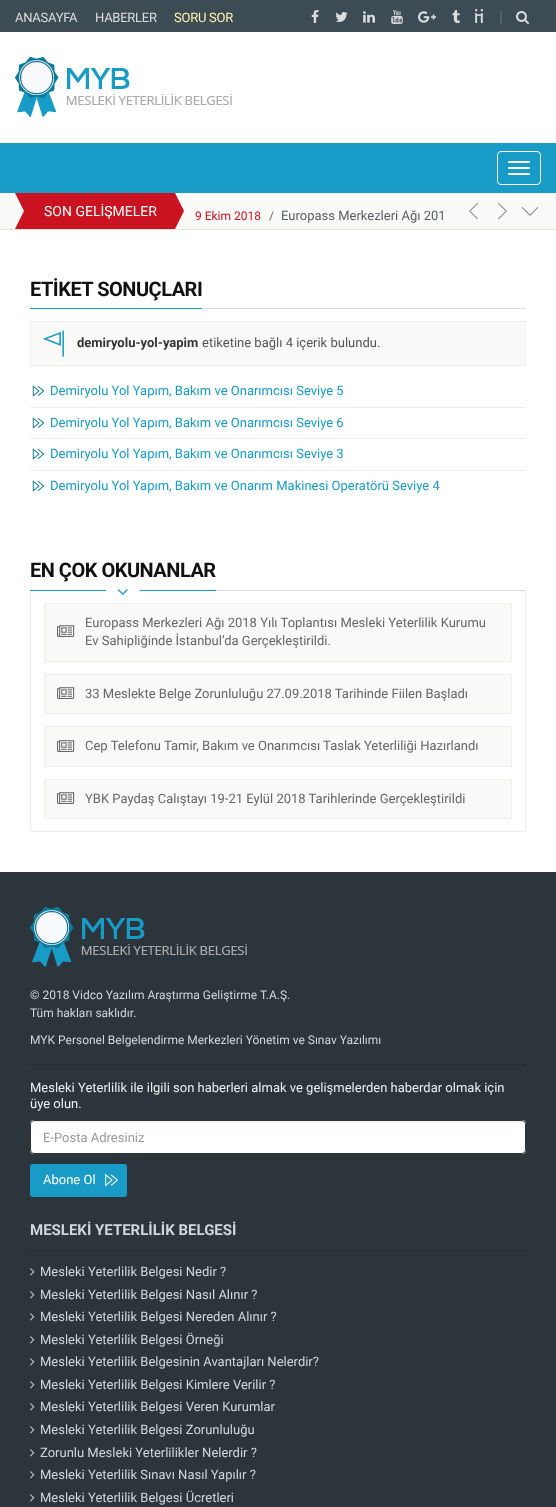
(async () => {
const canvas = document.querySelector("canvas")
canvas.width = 556
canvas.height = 1507
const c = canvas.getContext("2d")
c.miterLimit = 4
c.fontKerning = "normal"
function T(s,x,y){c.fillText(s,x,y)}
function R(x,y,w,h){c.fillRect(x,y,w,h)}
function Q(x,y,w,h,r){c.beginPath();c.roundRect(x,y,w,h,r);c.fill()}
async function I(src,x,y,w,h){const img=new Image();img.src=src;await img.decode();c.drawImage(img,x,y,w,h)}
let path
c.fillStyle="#fff"
R(0,0,556,1507)
c.fillStyle="#3d4c54"
R(0,0,556,32)
c.letterSpacing="-0.25px"
c.font="13px Roboto"
c.fillStyle="#ddd"
T("ANASAYFA",15,22)
T("HABERLER",95,22)
c.fillStyle="#fff1b4"
T("SORU SOR",174,22)
await I("1.png",311,10,8,13)
await I("2.png",335,12,13,10)
await I("3.png",363,11,12,12)
await I("4.png",391,10,12,14)
await I("5.png",418,11,18,12)
await I("6.png",452,10,8,13)
await I("7.png",475,9,8,14)
c.letterSpacing="0px"
c.font="16px Roboto"
c.fillStyle="#647076"
T("|",499,22)
await I("8.png",516,11,13,13)
await I("9.png",15,57,217,60)
c.fillStyle="#189bc6"
R(0,143,556,50)
c.beginPath()
c.roundRect(497.5,151.5,43,33,3.5)
c.strokeStyle="#fff"
c.stroke()
c.fillStyle="#fff"
Q(508,161,22,2,1)
Q(508,167,22,2,1)
Q(508,173,22,2,1)
c.fillStyle="#f9f9f7"
R(0,193,556,36)
c.fillStyle="#e6e3da"
R(0,229,556,1)
c.fillStyle="#ca1220"
R(15,193,160,36)
c.fillStyle="#f9f9f7"
path = new Path2D("M15 229v-36l9 18z")
c.fill(path)
c.font="14px Roboto"
c.fillStyle="#fff"
T("SON GELİŞMELER",44,216)
c.fillStyle="#ca1220"
path = new Path2D("M175 229v-36l9 18z")
c.fill(path)
c.font="12px Roboto"
T("9 Ekim 2018",195,220)
c.fillStyle="#5a5f61"
T("/",269,220)
c.font="13px Roboto"
T("Europass Merkezleri Ağı 201",281,220)
await I("10.png",469,202,9,18)
await I("11.png",498,202,9,18)
c.fillStyle="#8a8d8e"
path = new Path2D("M538.5 207.5l-8.5 8.5l-8.5-8.5l1-.5l7.5 7.5l7.5-7.5z")
c.fill(path)
c.fillStyle="#ddd"
R(202,308,324,1)
c.fillStyle="#189bc6"
R(30,308,172,1)
c.letterSpacing="-0.5px"
c.font="bold 20px Roboto"
c.fillStyle="#111"
T("ETİKET SONUÇLARI",30,296)
c.fillStyle="#f9f9f7"
c.beginPath()
c.rect(30.5,321.5,495,44)
c.fill()
c.strokeStyle="#eee"
c.stroke()
await I("12.png",42,330,22,27)
c.letterSpacing="0px"
c.font="bold 13px Roboto"
c.fillStyle="#333"
T("demiryolu-yol-yapim",77,347)
c.font="13px Roboto"
c.fillStyle="#555"
T("etiketine bağlı 4 içerik bulundu.",202,347)
c.fillStyle="#eee"
R(30,407,496,1)
await I("13.png",32,385,13,12)
c.fillStyle="#189bc6"
T("Demiryolu Yol Yapım, Bakım ve Onarımcısı Seviye 5",50,395)
c.fillStyle="#eee"
R(30,438,496,1)
await I("13.png",32,417,13,12)
c.fillStyle="#189bc6"
T("Demiryolu Yol Yapım, Bakım ve Onarımcısı Seviye 6",50,427)
c.fillStyle="#eee"
R(30,470,496,1)
await I("13.png",32,448,13,12)
c.fillStyle="#189bc6"
T("Demiryolu Yol Yapım, Bakım ve Onarımcısı Seviye 3",50,458)
await I("13.png",32,480,13,12)
T("Demiryolu Yol Yapım, Bakım ve Onarım Makinesi Operatörü Seviye 4",50,490)
c.fillStyle="#ddd"
R(216,590,310,1)
c.fillStyle="#189bc6"
R(30,590,186,1)
c.letterSpacing="-0.5px"
c.font="bold 20px Roboto"
c.fillStyle="#111"
T("EN ÇOK OKUNANLAR",30,577)
c.fillStyle="#fff"
R(106,590,34,1)
await I("14.png",117,589,11,6)
c.fillStyle="#eee"
R(525,591,1,241)
R(30,831,496,1)
R(30,591,1,241)
c.fillStyle="#f9f9f7"
c.beginPath()
c.rect(44.5,603.5,467,58)
c.fill()
c.stroke()
await I("15.png",57,625,18,12)
c.letterSpacing="0px"
c.font="13px Roboto"
c.fillStyle="#666"
T("Europass Merkezleri Ağı 2018 Yılı Toplantısı Mesleki Yeterlilik Kurumu",85,627)
T("Ev Sahipliğinde İstanbul’da Gerçekleştirildi.",85,645)
c.fillStyle="#f9f9f7"
c.beginPath()
c.rect(44.5,674.5,467,39)
c.fill()
c.stroke()
await I("15.png",57,687,18,12)
c.fillStyle="#666"
T("33 Meslekte Belge Zorunluluğu 27.09.2018 Tarihinde Fiilen Başladı",85,698)
c.fillStyle="#f9f9f7"
c.beginPath()
c.rect(44.5,726.5,467,40)
c.fill()
c.stroke()
await I("15.png",57,740,18,12)
c.fillStyle="#666"
T("Cep Telefonu Tamir, Bakım ve Onarımcısı Taslak Yeterliliği Hazırlandı",85,750)
c.fillStyle="#f9f9f7"
c.beginPath()
c.rect(44.5,779.5,467,39)
c.fill()
c.stroke()
await I("15.png",57,792,18,12)
c.fillStyle="#666"
T("YBK Paydaş Calıştayı 19-21 Eylül 2018 Tarihlerinde Gerçekleştirildi",85,803)
c.fillStyle="#2b353b"
R(0,872,556,635)
await I("16.png",30,907,217,60)
c.font="12px Roboto"
c.fillStyle="#cfd7dc"
T("© 2018 Vidco Yazılım Araştırma Geliştirme T.A.Ş.",30,999)
T("Tüm hakları saklıdır.",30,1017)
T("MYK Personel Belgelendirme Merkezleri Yönetim ve Sınav Yazılımı",30,1044)
c.fillStyle="#252d32"
R(30,1064,496,1)
c.font="13px Roboto"
c.fillStyle="#eee"
T("Mesleki Yeterlilik ile ilgili son haberleri almak ve gelişmelerden haberdar olmak için",30,1092)
T("üye olun.",30,1108)
c.fillStyle="#fff"
Q(30,1120,496,34,4)
c.fillStyle="#ececec"
path = new Path2D("M34 1122h488c2 0 3 1 3 3c0-2-1-4-3-4h-488c-2 0-3 2-3 4c0-2 1-3 3-3z")
c.fill(path)
c.beginPath()
c.roundRect(30.5,1120.5,495,33,3.5)
c.strokeStyle="#2b353b"
c.stroke()
c.fillStyle="#999"
T("E-Posta Adresiniz",43,1142)
c.fillStyle="#189bc6"
Q(30,1164,97,33,3)
c.fillStyle="#fff"
T("Abone Ol",43,1184)
await I("17.png",105,1173,14,14)
c.fillStyle="#252d32"
R(30,1250,496,1)
c.font="bold 15px Roboto"
c.fillStyle="#cfd7dc"
T("MESLEKİ YETERLİLİK BELGESİ",30,1235)
await I("18.png",30,1268,5,8)
c.font="13px Roboto"
T("Mesleki Yeterlilik Belgesi Nedir ?",40,1276)
await I("18.png",30,1291,5,8)
T("Mesleki Yeterlilik Belgesi Nasıl Alınır ?",40,1299)
await I("18.png",30,1313,5,8)
T("Mesleki Yeterlilik Belgesi Nereden Alınır ?",40,1321)
await I("18.png",30,1336,5,8)
T("Mesleki Yeterlilik Belgesi Örneği",40,1344)
await I("18.png",30,1358,5,8)
T("Mesleki Yeterlilik Belgesinin Avantajları Nelerdir?",40,1366)
await I("18.png",30,1381,5,8)
T("Mesleki Yeterlilik Belgesi Kimlere Verilir ?",40,1389)
await I("18.png",30,1403,5,8)
T("Mesleki Yeterlilik Belgesi Veren Kurumlar",40,1411)
await I("18.png",30,1426,5,8)
T("Mesleki Yeterlilik Belgesi Zorunluluğu",40,1434)
await I("18.png",30,1449,5,8)
T("Zorunlu Mesleki Yeterlilikler Nelerdir ?",40,1457)
await I("18.png",30,1471,5,8)
T("Mesleki Yeterlilik Sınavı Nasıl Yapılır ?",40,1479)
await I("18.png",30,1494,5,8)
T("Mesleki Yeterlilik Belgesi Ücretleri",40,1502)
})()
